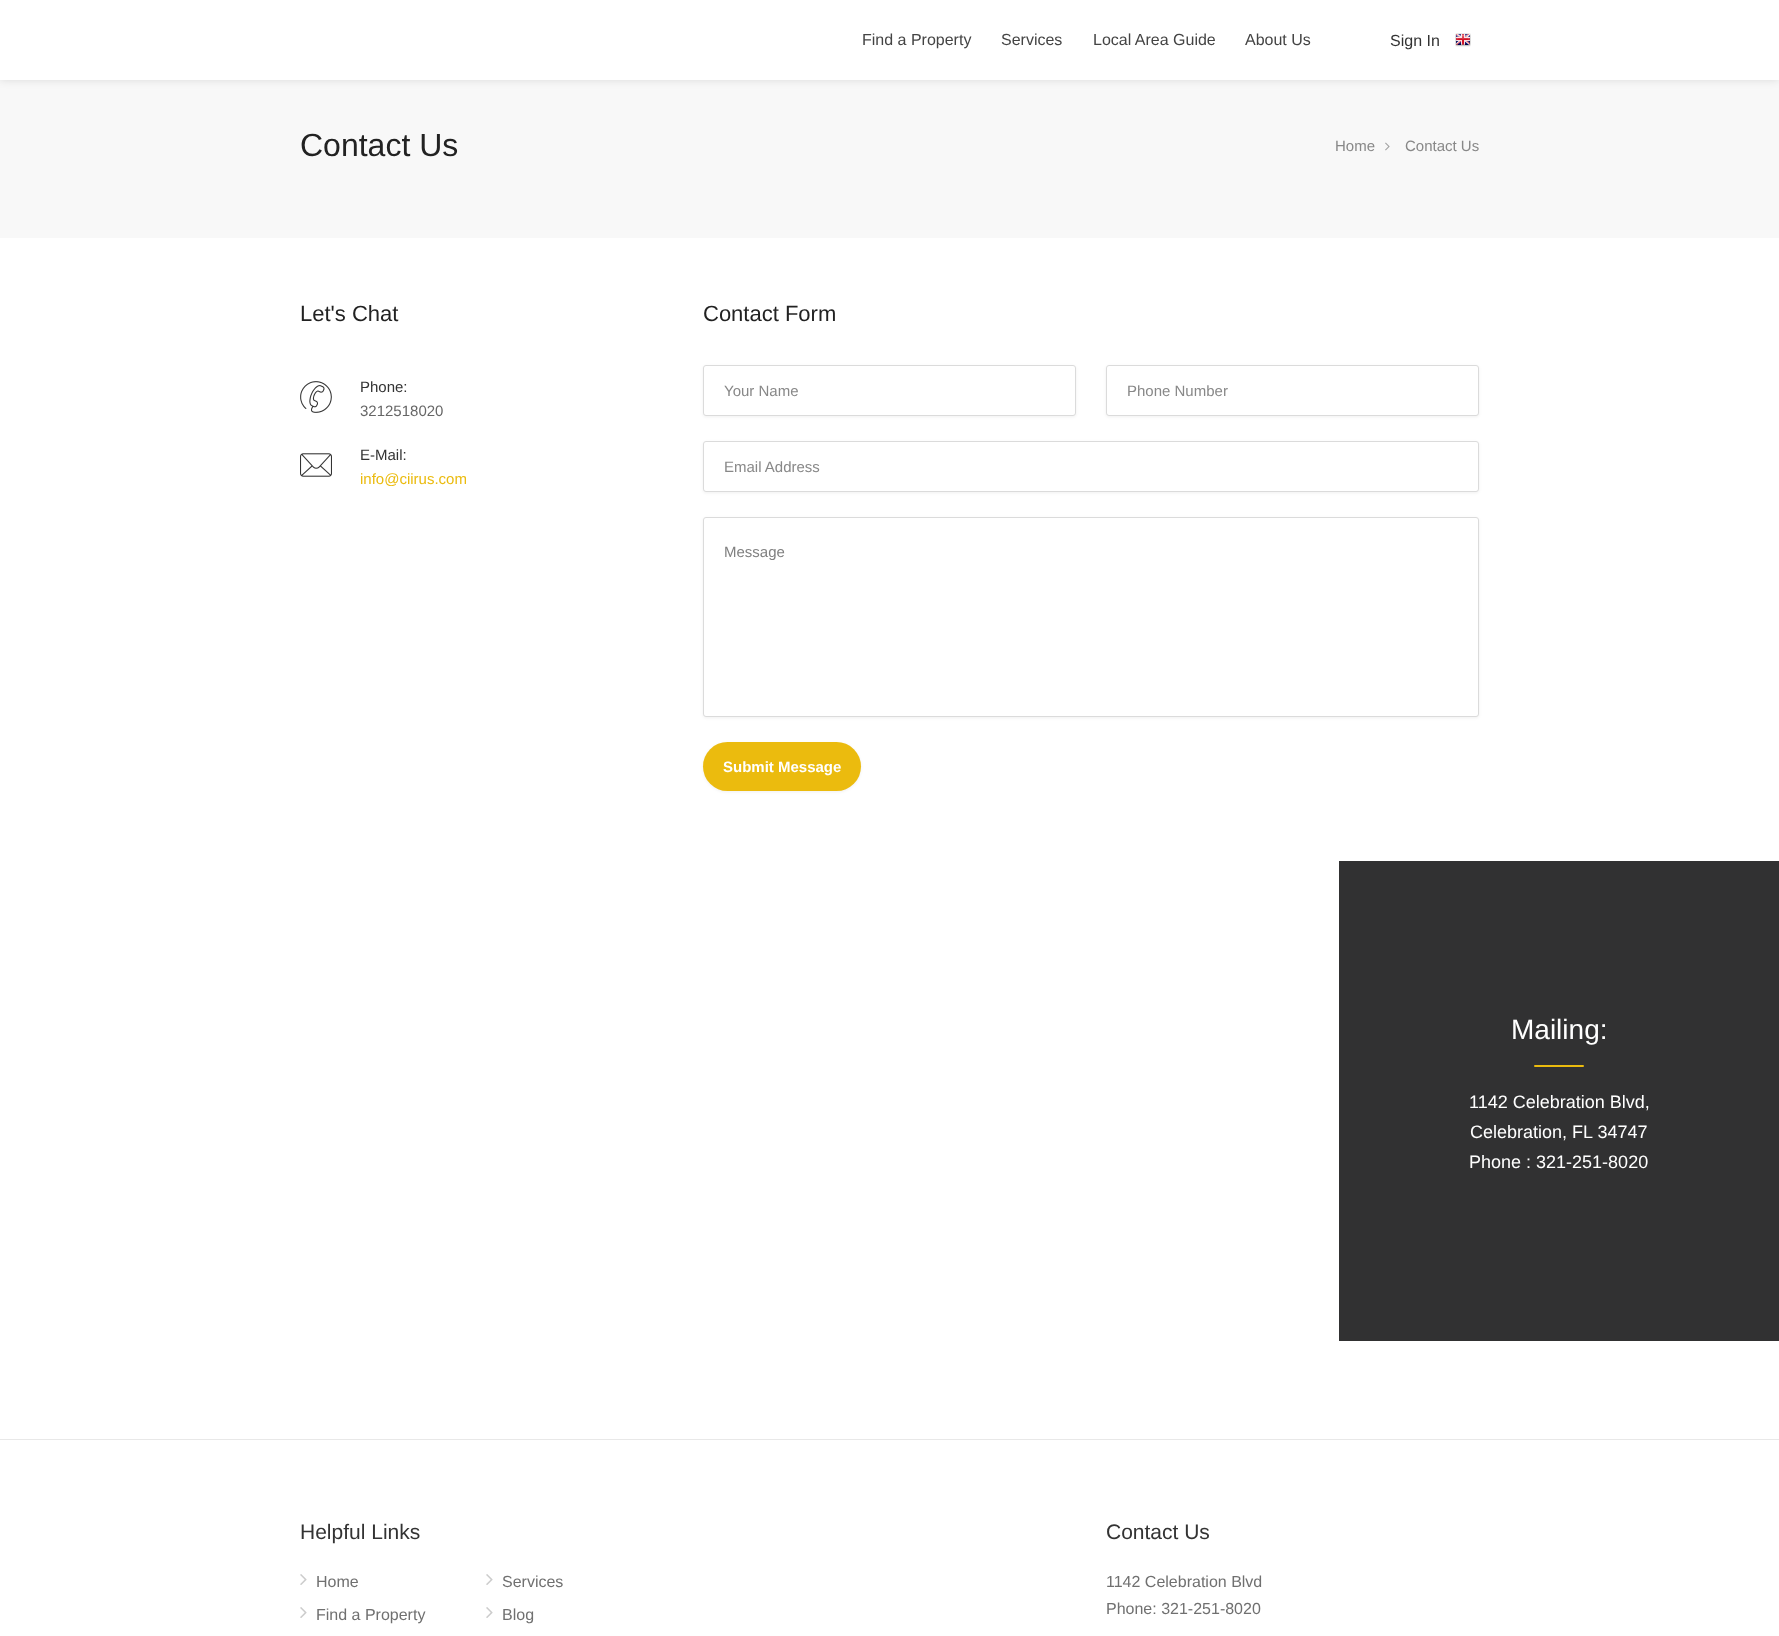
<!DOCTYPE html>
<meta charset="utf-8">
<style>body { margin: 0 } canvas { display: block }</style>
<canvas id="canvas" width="1779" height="1636"></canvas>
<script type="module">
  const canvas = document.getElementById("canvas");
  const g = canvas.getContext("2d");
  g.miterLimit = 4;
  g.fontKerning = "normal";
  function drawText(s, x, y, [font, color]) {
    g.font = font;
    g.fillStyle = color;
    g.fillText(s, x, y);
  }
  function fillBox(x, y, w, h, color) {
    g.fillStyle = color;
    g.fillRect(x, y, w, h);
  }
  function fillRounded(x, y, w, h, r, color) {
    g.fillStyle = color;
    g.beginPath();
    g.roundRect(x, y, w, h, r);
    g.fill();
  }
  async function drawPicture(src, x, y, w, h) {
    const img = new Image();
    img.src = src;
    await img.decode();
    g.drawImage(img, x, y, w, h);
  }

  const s1 = ["16px Liberation Sans", "#444444"];
  const s2 = ["16px Liberation Sans", "#333333"];
  const s3 = ["32px Liberation Sans", "#222222"];
  const s4 = ["15px Liberation Sans", "#888888"];
  const s5 = ["22px Liberation Sans", "#222222"];
  const s6 = ["15px Liberation Sans", "#333333"];
  const s7 = ["15px Liberation Sans", "#666666"];
  const s8 = ["15px Liberation Sans", "#EBBB0E"];
  const s9 = ["15px Liberation Sans", "#808080"];
  const s10 = ["bold 15px Liberation Sans", "#FFFFFF"];
  const s11 = ["28px Liberation Sans", "#FFFFFF"];
  const s12 = ["18px Liberation Sans", "#FFFFFF"];
  const s13 = ["21px Liberation Sans", "#333333"];
  const s14 = ["16px Liberation Sans", "#707070"];

  fillBox(0, 0, 1779, 1636, "#FFFFFF");
  fillBox(0, 80, 1779, 158, "#F8F8F8");
  g.fillStyle = "rgba(0, 0, 0, 0.12)";
  g.filter = "blur(4px)";
  g.beginPath();
  g.rect(0, 0, 1779, 80);
  g.fill();
  g.filter = "none";
  fillBox(0, 0, 1779, 80, "#FFFFFF");
  drawText("Find a Property", 862, 45, s1);
  drawText("Services", 1001, 45, s1);
  drawText("Local Area Guide", 1093, 45, s1);
  drawText("About Us", 1245, 45, s1);
  drawText("Sign In", 1390, 46, s2);
  await drawPicture("pic1.png", 1455, 33, 16, 14);
  drawText("Contact Us", 300, 156, s3);
  drawText("Home", 1335, 151, s4);
  await drawPicture("pic2.png", 1385, 142, 5, 9);
  drawText("Contact Us", 1405, 151, s4);
  drawText("Let's Chat", 300, 321, s5);
  await drawPicture("pic3.png", 300, 381, 32, 32);
  drawText("Phone:", 360, 392, s6);
  drawText("3212518020", 360, 416, s7);
  await drawPicture("pic4.png", 300, 453, 32, 24);
  drawText("E-Mail:", 360, 460, s6);
  drawText("info@ciirus.com", 360, 484, s8);
  drawText("Contact Form", 703, 321, s5);
  g.fillStyle = "rgba(0, 0, 0, 0.06)";
  g.filter = "blur(1.5px)";
  g.beginPath();
  g.roundRect(703, 366, 373, 51, 3);
  g.fill();
  g.filter = "none";
  g.fillStyle = "#FFFFFF";
  g.beginPath();
  g.roundRect(703.5, 365.5, 372, 50, 2.5);
  g.fill();
  g.strokeStyle = "#DBDBDB";
  g.stroke();
  drawText("Your Name", 724, 396, s4);
  g.fillStyle = "rgba(0, 0, 0, 0.06)";
  g.filter = "blur(1.5px)";
  g.beginPath();
  g.roundRect(1106, 366, 373, 51, 3);
  g.fill();
  g.filter = "none";
  g.fillStyle = "#FFFFFF";
  g.beginPath();
  g.roundRect(1106.5, 365.5, 372, 50, 2.5);
  g.fill();
  g.stroke();
  drawText("Phone Number", 1127, 396, s4);
  g.fillStyle = "rgba(0, 0, 0, 0.06)";
  g.filter = "blur(1.5px)";
  g.beginPath();
  g.roundRect(703, 442, 776, 51, 3);
  g.fill();
  g.filter = "none";
  g.fillStyle = "#FFFFFF";
  g.beginPath();
  g.roundRect(703.5, 441.5, 775, 50, 2.5);
  g.fill();
  g.stroke();
  drawText("Email Address", 724, 472, s4);
  g.fillStyle = "rgba(0, 0, 0, 0.06)";
  g.filter = "blur(1.5px)";
  g.beginPath();
  g.roundRect(703, 518, 776, 200, 3);
  g.fill();
  g.filter = "none";
  g.fillStyle = "#FFFFFF";
  g.beginPath();
  g.roundRect(703.5, 517.5, 775, 199, 2.5);
  g.fill();
  g.stroke();
  drawText("Message", 724, 557, s9);
  g.fillStyle = "rgba(0, 0, 0, 0.06)";
  g.filter = "blur(1.5px)";
  g.beginPath();
  g.roundRect(703, 743, 158, 49, 24.5);
  g.fill();
  g.filter = "none";
  fillRounded(703, 742, 158, 49, 24.5, "#EBBB0E");
  drawText("Submit Message", 723, 772, s10);
  fillBox(1339, 861, 440, 480, "#313132");
  drawText("Mailing:", 1511, 1039, s11);
  fillRounded(1534, 1065, 50, 2, 1, "#EBBB0E");
  drawText("1142 Celebration Blvd,", 1469, 1108, s12);
  drawText("Celebration, FL 34747", 1470, 1138, s12);
  drawText("Phone : 321-251-8020", 1469, 1168, s12);
  fillBox(0, 1439, 1779, 1, "#E8E8E8");
  drawText("Helpful Links", 300, 1539, s13);
  await drawPicture("pic5.png", 300, 1574, 7, 11);
  drawText("Home", 316, 1587, s14);
  await drawPicture("pic5.png", 300, 1607, 7, 11);
  drawText("Find a Property", 316, 1620, s14);
  await drawPicture("pic5.png", 486, 1574, 7, 11);
  drawText("Services", 502, 1587, s14);
  await drawPicture("pic5.png", 486, 1607, 7, 11);
  drawText("Blog", 502, 1620, s14);
  drawText("Contact Us", 1106, 1539, s13);
  drawText("1142 Celebration Blvd", 1106, 1587, s14);
  drawText("Phone: 321-251-8020", 1106, 1614, s14);
</script>
